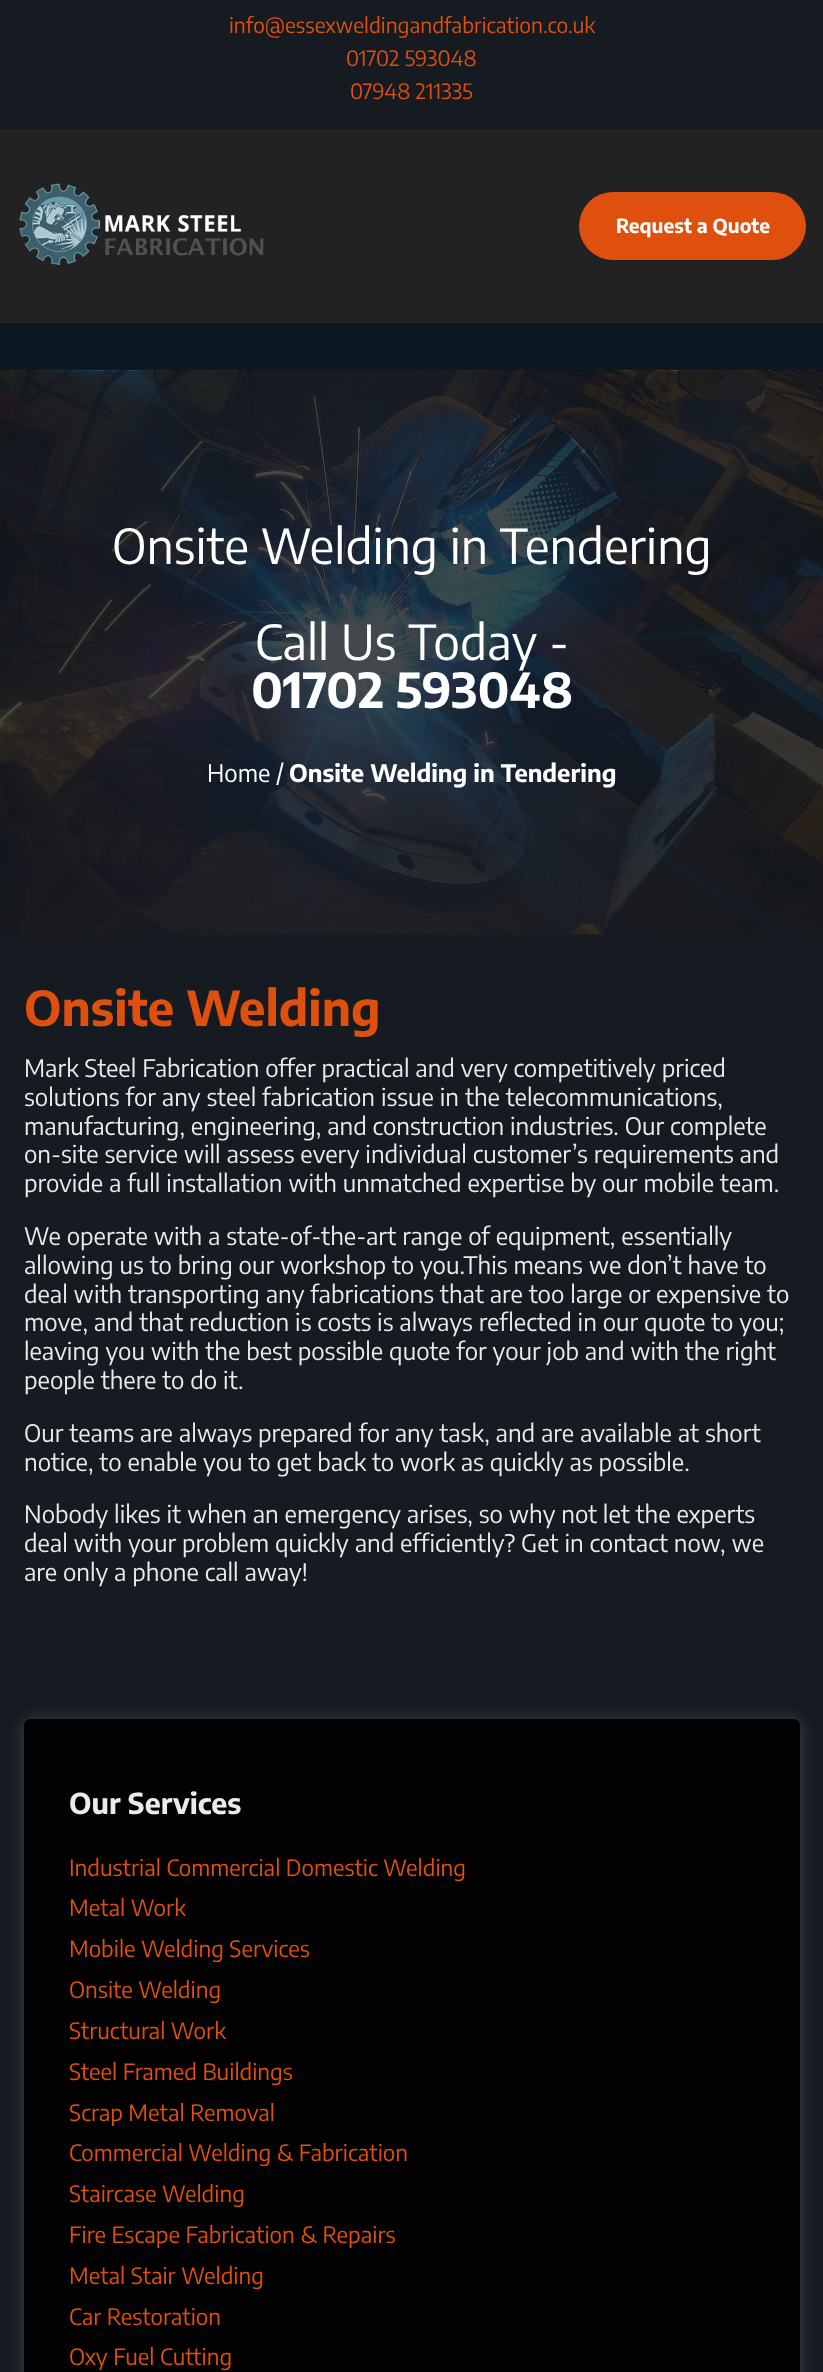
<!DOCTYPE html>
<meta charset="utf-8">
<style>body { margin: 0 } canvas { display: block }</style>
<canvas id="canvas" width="823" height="2372"></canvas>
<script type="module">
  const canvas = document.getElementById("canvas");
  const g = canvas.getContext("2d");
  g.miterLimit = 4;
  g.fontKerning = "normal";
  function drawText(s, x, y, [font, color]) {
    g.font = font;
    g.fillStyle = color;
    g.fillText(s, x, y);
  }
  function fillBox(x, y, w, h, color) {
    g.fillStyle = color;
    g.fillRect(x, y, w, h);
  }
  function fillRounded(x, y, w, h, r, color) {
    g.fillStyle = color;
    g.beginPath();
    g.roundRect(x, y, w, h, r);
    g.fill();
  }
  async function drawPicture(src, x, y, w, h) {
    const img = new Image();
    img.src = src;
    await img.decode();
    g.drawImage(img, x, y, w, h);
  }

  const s1 = ["21px Encode Sans Condensed", "#DF500E"];
  const s2 = ["bold 19.5px Encode Sans Condensed", "#FFFFFF"];
  const s3 = ["48px Encode Sans Condensed", "#FFFFFF"];
  const s4 = ["bold 48px Encode Sans Condensed", "#FFFFFF"];
  const s5 = ["24px Encode Sans Condensed", "#FFFFFF"];
  const s6 = ["bold 24px Encode Sans Condensed", "#FFFFFF"];
  const s7 = ["bold 48px Encode Sans Condensed", "#DF500E"];
  const s8 = ["24px Encode Sans Condensed", "#ECEBEB"];
  const s9 = ["bold 28.75px Encode Sans Condensed", "#ECEBEB"];
  const s10 = ["22.4px Encode Sans Condensed", "#DF500E"];

  fillBox(0, 0, 823, 2372, "#151B20");
  drawText("info@essexweldingandfabrication.co.uk", 229, 33, s1);
  drawText("01702 593048", 346, 66, s1);
  drawText("07948 211335", 350, 99, s1);
  fillBox(0, 129, 823, 194, "#222222");
  await drawPicture("pic1.png", 18, 183, 246, 83);
  fillRounded(579, 192, 227, 68, 34, "#DF500E");
  drawText("Request a Quote", 616, 233, s2);
  fillBox(0, 323, 823, 48, "#0B1922");
  await drawPicture("pic2.png", 0, 370, 823, 565);
  drawText("Onsite Welding in Tendering", 112, 564, s3);
  drawText("Call Us Today -", 255, 660, s3);
  drawText("01702 593048", 251, 708, s4);
  drawText("Home /", 207, 782, s5);
  drawText("Onsite Welding in Tendering", 289, 782, s6);
  drawText("Onsite Welding", 24, 1026, s7);
  drawText("Mark Steel Fabrication offer practical and very competitively priced", 24, 1077, s8);
  drawText("solutions for any steel fabrication issue in the telecommunications,", 24, 1106, s8);
  drawText("manufacturing, engineering, and construction industries. Our complete", 24, 1135, s8);
  drawText("on-site service will assess every individual customer’s requirements and", 24, 1163, s8);
  drawText("provide a full installation with unmatched expertise by our mobile team.", 24, 1192, s8);
  drawText("We operate with a state-of-the-art range of equipment, essentially", 24, 1245, s8);
  drawText("allowing us to bring our workshop to you.This means we don’t have to", 24, 1274, s8);
  drawText("deal with transporting any fabrications that are too large or expensive to", 24, 1303, s8);
  drawText("move, and that reduction is costs is always reflected in our quote to you;", 24, 1331, s8);
  drawText("leaving you with the best possible quote for your job and with the right", 24, 1360, s8);
  drawText("people there to do it.", 24, 1389, s8);
  drawText("Our teams are always prepared for any task, and are available at short", 24, 1442, s8);
  drawText("notice, to enable you to get back to work as quickly as possible.", 24, 1471, s8);
  drawText("Nobody likes it when an emergency arises, so why not let the experts", 24, 1523, s8);
  drawText("deal with your problem quickly and efficiently? Get in contact now, we", 24, 1552, s8);
  drawText("are only a phone call away!", 24, 1581, s8);
  g.fillStyle = "rgba(236, 235, 235, 0.2)";
  g.filter = "blur(7.5px)";
  g.beginPath();
  g.roundRect(24, 1719, 776, 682, 6);
  g.fill();
  g.filter = "none";
  fillRounded(24, 1719, 776, 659, 6, "#020202");
  drawText("Our Services", 69, 1814, s9);
  drawText("Industrial Commercial Domestic Welding", 69, 1876, s10);
  drawText("Metal Work", 69, 1916, s10);
  drawText("Mobile Welding Services", 69, 1957, s10);
  drawText("Onsite Welding", 69, 1998, s10);
  drawText("Structural Work", 69, 2039, s10);
  drawText("Steel Framed Buildings", 69, 2080, s10);
  drawText("Scrap Metal Removal", 69, 2121, s10);
  drawText("Commercial Welding & Fabrication", 69, 2161, s10);
  drawText("Staircase Welding", 69, 2202, s10);
  drawText("Fire Escape Fabrication & Repairs", 69, 2243, s10);
  drawText("Metal Stair Welding", 69, 2284, s10);
  drawText("Car Restoration", 69, 2325, s10);
  drawText("Oxy Fuel Cutting", 69, 2365, s10);
</script>
